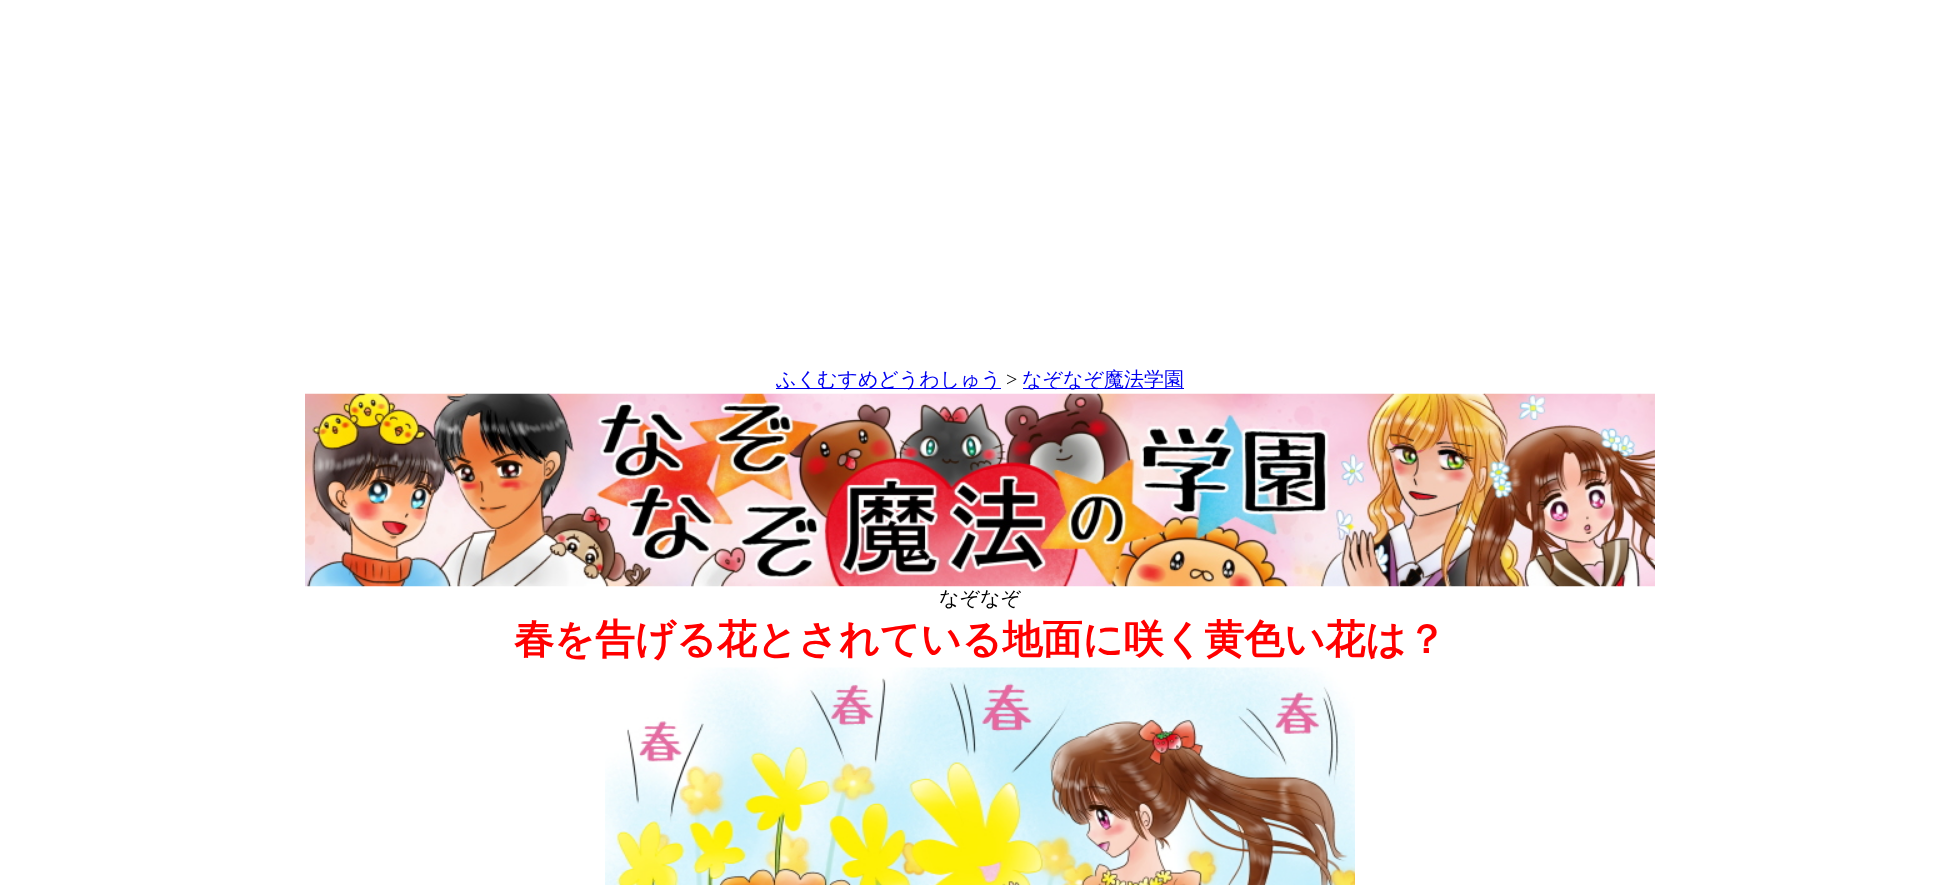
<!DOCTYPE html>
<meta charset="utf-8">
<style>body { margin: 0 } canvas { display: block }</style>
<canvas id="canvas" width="1960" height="885"></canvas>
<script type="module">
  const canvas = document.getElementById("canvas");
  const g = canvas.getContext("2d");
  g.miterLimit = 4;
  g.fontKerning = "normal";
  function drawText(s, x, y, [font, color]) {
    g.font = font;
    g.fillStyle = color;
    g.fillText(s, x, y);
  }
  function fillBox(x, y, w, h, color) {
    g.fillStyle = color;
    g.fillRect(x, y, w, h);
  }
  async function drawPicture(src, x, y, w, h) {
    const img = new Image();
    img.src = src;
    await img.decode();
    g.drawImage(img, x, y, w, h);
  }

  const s1 = ["500 20px WenQuanYi Zen Hei", "#0000EE"];
  const s2 = ["20px Liberation Serif", "#000000"];
  const s3 = ["500 20px WenQuanYi Zen Hei", "#000000"];
  const s4 = ["bold 40px WenQuanYi Zen Hei", "#FF0000"];

  fillBox(0, 0, 1960, 885, "#FFFFFF");
  fillBox(776, 388, 225, 1, "#0000EE");
  drawText("ふくむすめどうわしゅう", 776, 386, s1);
  drawText(">", 1006, 386, s2);
  fillBox(1023, 388, 161, 1, "#0000EE");
  drawText("なぞなぞ魔法学園", 1022, 386, s1);
  await drawPicture("pic1.png", 305, 393, 1350, 194);
  drawText("なぞなぞ", 939, 605, s3);
  drawText("春を告げる花とされている地面に咲く黄色い花は？", 514, 653, s4);
  await drawPicture("pic2.png", 605, 667, 750, 218);
</script>
